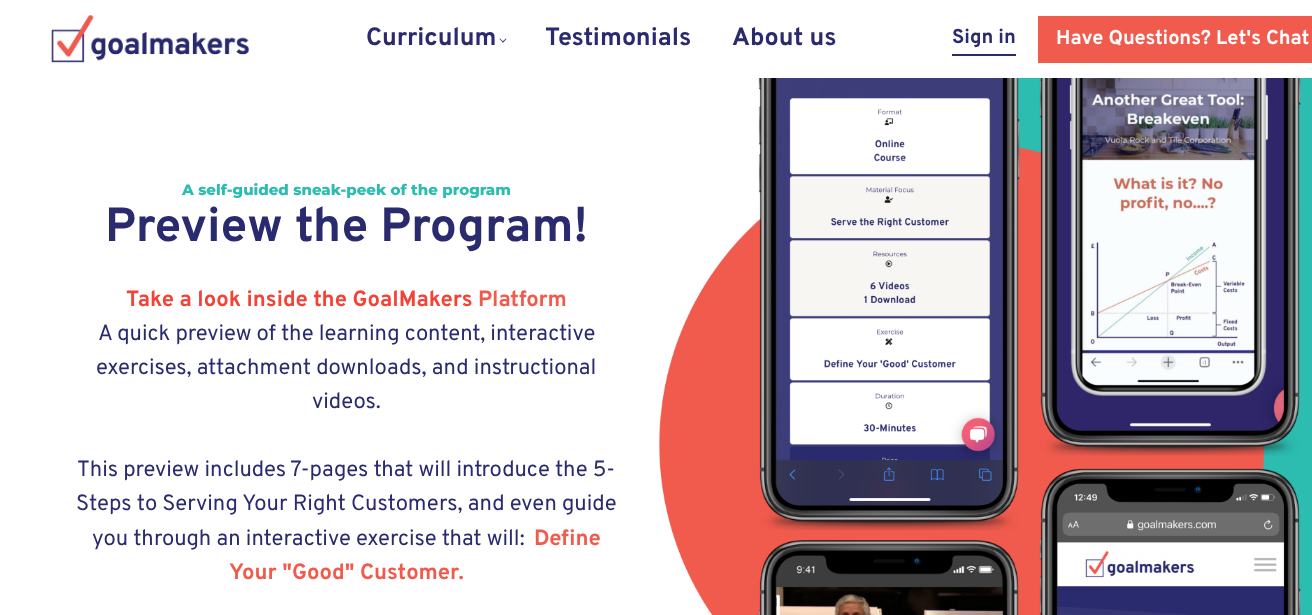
<!DOCTYPE html>
<meta charset="utf-8">
<style>body { margin: 0 } canvas { display: block }</style>
<canvas id="canvas" width="1312" height="615"></canvas>
<script type="module">
  const canvas = document.getElementById("canvas");
  const g = canvas.getContext("2d");
  g.miterLimit = 4;
  g.fontKerning = "normal";
  function drawText(s, x, y, [font, color]) {
    g.font = font;
    g.fillStyle = color;
    g.fillText(s, x, y);
  }
  function fillBox(x, y, w, h, color) {
    g.fillStyle = color;
    g.fillRect(x, y, w, h);
  }
  async function drawPicture(src, x, y, w, h) {
    const img = new Image();
    img.src = src;
    await img.decode();
    g.drawImage(img, x, y, w, h);
  }

  const s1 = ["bold 25px Overpass", "#2A2A6E"];
  const s2 = ["bold 20px Overpass", "#2A2A6E"];
  const s3 = ["bold 20px Overpass", "#FFFFFF"];
  const s4 = ["800 15px Montserrat", "#2CBCB0"];
  const s5 = ["bold 48px Overpass", "#2A2A6E"];
  const s6 = ["bold 22px Overpass", "#F44336"];
  const s7 = ["bold 22px Overpass", "#F15B4E"];
  const s8 = ["22px Overpass", "#2A2A6E"];

  fillBox(0, 0, 1312, 615, "#FFFFFF");
  await drawPicture("pic1.png", 51, 15, 199, 48);
  drawText("Curriculum", 366, 45, s1);
  g.beginPath();
  g.moveTo(506.5, 39);
  g.lineTo(503, 42.5);
  g.lineTo(502, 42);
  g.lineTo(506, 38.5);
  g.closePath();
  g.fill();
  g.beginPath();
  g.moveTo(503.5, 42);
  g.lineTo(503, 42.5);
  g.lineTo(499.5, 39);
  g.lineTo(500, 38.5);
  g.closePath();
  g.fill();
  drawText("Testimonials", 545, 45, s1);
  drawText("About us", 732, 45, s1);
  fillBox(952, 54, 64, 2, "#2A2A6E");
  drawText("Sign in", 952, 43, s2);
  fillBox(1038, 16, 274, 47, "#F15B4E");
  drawText("Have Questions? Let's Chat", 1056, 44, s3);
  await drawPicture("pic2.png", 659, 78, 653, 537);
  drawText("A self-guided sneak-peek of the program", 182, 195, s4);
  drawText("Preview the Program!", 105, 241, s5);
  drawText("Take a look inside the GoalMakers", 126, 306, s6);
  drawText("Platform", 478, 306, s7);
  drawText("A quick preview of the learning content, interactive", 98, 340, s8);
  drawText("exercises, attachment downloads, and instructional", 96, 374, s8);
  drawText("videos.", 312, 408, s8);
  drawText("This preview includes 7-pages that will introduce the 5-", 77, 476, s8);
  drawText("Steps to Serving Your Right Customers, and even guide", 76, 510, s8);
  drawText("you through an interactive exercise that will:", 92, 545, s8);
  drawText("Define", 534, 545, s7);
  drawText("Your \"Good\" Customer.", 229, 579, s7);
</script>
